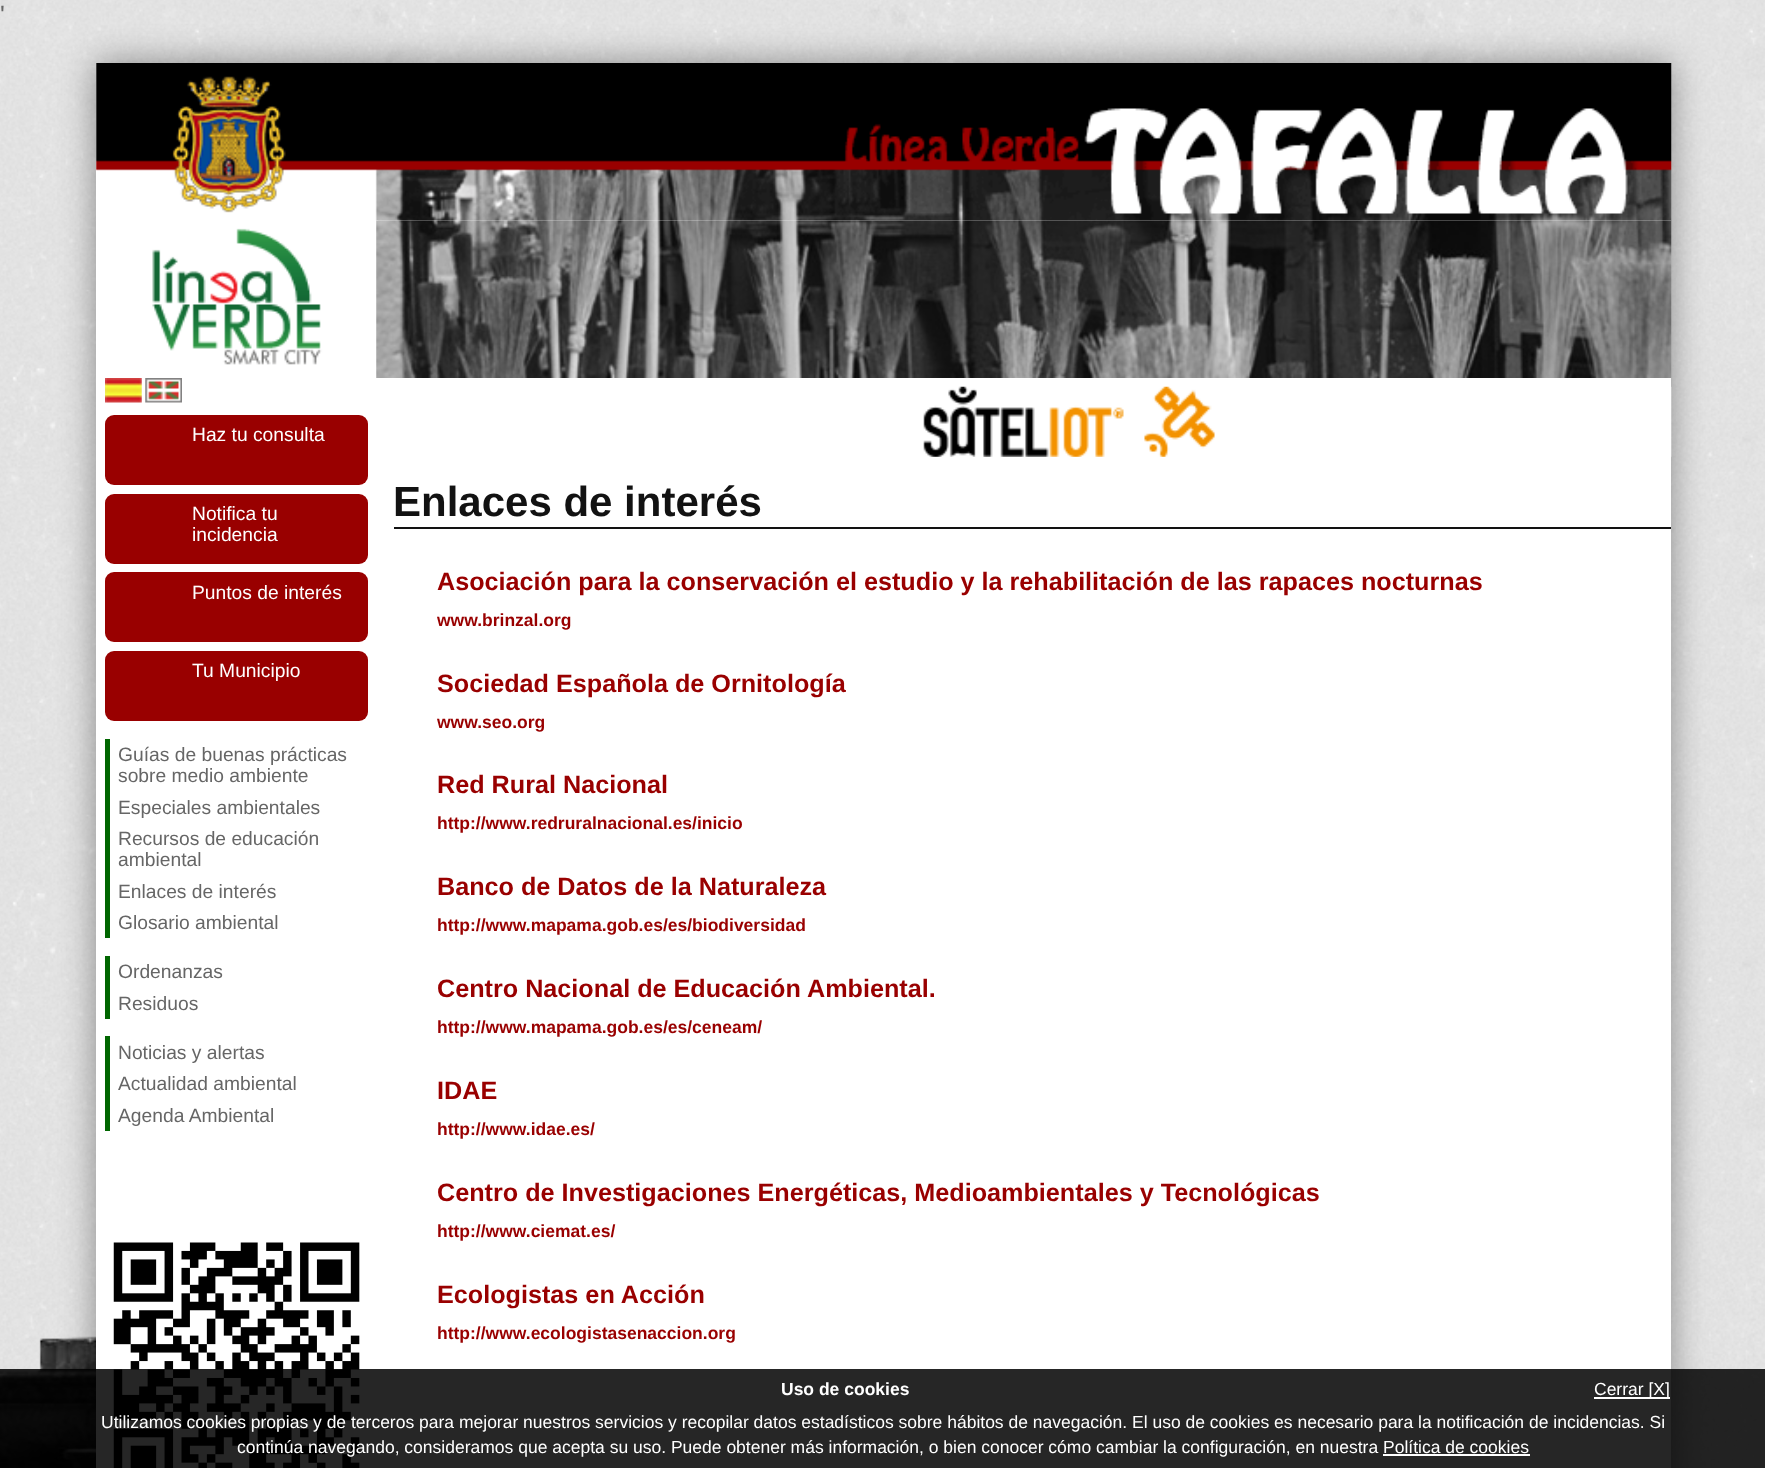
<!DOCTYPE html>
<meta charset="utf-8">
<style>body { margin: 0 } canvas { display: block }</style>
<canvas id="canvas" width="1765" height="1468"></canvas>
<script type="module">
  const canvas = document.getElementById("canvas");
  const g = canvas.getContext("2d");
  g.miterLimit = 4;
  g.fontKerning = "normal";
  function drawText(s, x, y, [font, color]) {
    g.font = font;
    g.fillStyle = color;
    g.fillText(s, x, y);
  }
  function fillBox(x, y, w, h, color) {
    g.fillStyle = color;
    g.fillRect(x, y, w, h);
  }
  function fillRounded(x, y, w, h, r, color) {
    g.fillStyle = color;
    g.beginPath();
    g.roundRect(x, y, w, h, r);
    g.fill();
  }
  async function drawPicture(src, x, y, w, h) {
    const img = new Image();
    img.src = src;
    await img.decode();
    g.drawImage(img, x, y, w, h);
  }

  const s1 = ["25.2px Liberation Sans", "#666666"];
  const s2 = ["19.25px Liberation Sans", "#FFFFFF"];
  const s3 = ["19.25px Liberation Sans", "#666666"];
  const s4 = ["bold 42px Liberation Sans", "#121212"];
  const s5 = ["bold 25.2px Liberation Sans", "#990000"];
  const s6 = ["bold 17.5px Liberation Sans", "#990000"];
  const s7 = ["bold 17.5px Liberation Sans", "#FFFFFF"];
  const s8 = ["17.5px Liberation Sans", "#FFFFFF"];

  fillBox(0, 0, 1765, 1468, "#FFFFFF");
  await drawPicture("pic1.png", 0, 0, 1765, 1468);
  drawText("'", 0, 23, s1);
  g.fillStyle = "rgba(0, 0, 0, 0.4)";
  g.filter = "blur(17.5px)";
  g.beginPath();
  g.rect(96, 63, 1575, 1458);
  g.fill();
  g.filter = "none";
  fillBox(96, 63, 1575, 1405, "#FFFFFF");
  await drawPicture("pic2.png", 96, 63, 1576, 158);
  await drawPicture("pic3.png", 152, 220, 226, 145);
  await drawPicture("pic4.png", 376, 220, 1296, 158);
  await drawPicture("pic5.png", 923, 386, 749, 71);
  await drawPicture("pic6.png", 105, 378, 37, 25);
  await drawPicture("pic7.png", 145, 378, 37, 25);
  fillRounded(105, 415, 263, 70, 9, "#990000");
  drawText("Haz tu consulta", 192, 441, s2);
  fillRounded(105, 494, 263, 70, 9, "#990000");
  drawText("Notifica tu", 192, 520, s2);
  drawText("incidencia", 192, 541, s2);
  fillRounded(105, 572, 263, 70, 9, "#990000");
  drawText("Puntos de interés", 192, 599, s2);
  fillRounded(105, 651, 263, 70, 9, "#990000");
  drawText("Tu Municipio", 192, 677, s2);
  fillBox(105, 739, 5, 199, "#006600");
  drawText("Guías de buenas prácticas", 118, 761, s3);
  drawText("sobre medio ambiente", 118, 782, s3);
  drawText("Especiales ambientales", 118, 814, s3);
  drawText("Recursos de educación", 118, 845, s3);
  drawText("ambiental", 118, 866, s3);
  drawText("Enlaces de interés", 118, 898, s3);
  drawText("Glosario ambiental", 118, 929, s3);
  fillBox(105, 956, 5, 63, "#006600");
  drawText("Ordenanzas", 118, 978, s3);
  drawText("Residuos", 118, 1010, s3);
  fillBox(105, 1036, 5, 95, "#006600");
  drawText("Noticias y alertas", 118, 1059, s3);
  drawText("Actualidad ambiental", 118, 1090, s3);
  drawText("Agenda Ambiental", 118, 1122, s3);
  await drawPicture("pic8.png", 113, 1242, 247, 226);
  fillBox(394, 527, 1277, 2, "#121212");
  drawText("Enlaces de interés", 393, 516, s4);
  drawText("Asociación para la conservación el estudio y la rehabilitación de las rapaces nocturnas", 437, 590, s5);
  drawText("www.brinzal.org", 437, 626, s6);
  drawText("Sociedad Española de Ornitología", 437, 692, s5);
  drawText("www.seo.org", 437, 728, s6);
  drawText("Red Rural Nacional", 437, 793, s5);
  drawText("http://www.redruralnacional.es/inicio", 437, 829, s6);
  drawText("Banco de Datos de la Naturaleza", 437, 895, s5);
  drawText("http://www.mapama.gob.es/es/biodiversidad", 437, 931, s6);
  drawText("Centro Nacional de Educación Ambiental.", 437, 997, s5);
  drawText("http://www.mapama.gob.es/es/ceneam/", 437, 1033, s6);
  drawText("IDAE", 437, 1099, s5);
  drawText("http://www.idae.es/", 437, 1135, s6);
  drawText("Centro de Investigaciones Energéticas, Medioambientales y Tecnológicas", 437, 1201, s5);
  drawText("http://www.ciemat.es/", 437, 1237, s6);
  drawText("Ecologistas en Acción", 437, 1303, s5);
  drawText("http://www.ecologistasenaccion.org", 437, 1339, s6);
  fillBox(0, 1369, 1765, 99, "rgba(0, 0, 0, 0.85)");
  drawText("Uso de cookies", 781, 1395, s7);
  fillBox(1594, 1397, 76, 2, "#FFFFFF");
  drawText("Cerrar [X]", 1594, 1395, s8);
  drawText("Utilizamos cookies propias y de terceros para mejorar nuestros servicios y recopilar datos estadísticos sobre hábitos de navegación. El uso de cookies es necesario para la notificación de incidencias. Si", 101, 1428, s8);
  drawText("continúa navegando, consideramos que acepta su uso. Puede obtener más información, o bien conocer cómo cambiar la configuración, en nuestra Política de cookies", 237, 1453, s8);
  fillBox(1383, 1454, 147, 2, "#FFFFFF");
</script>
